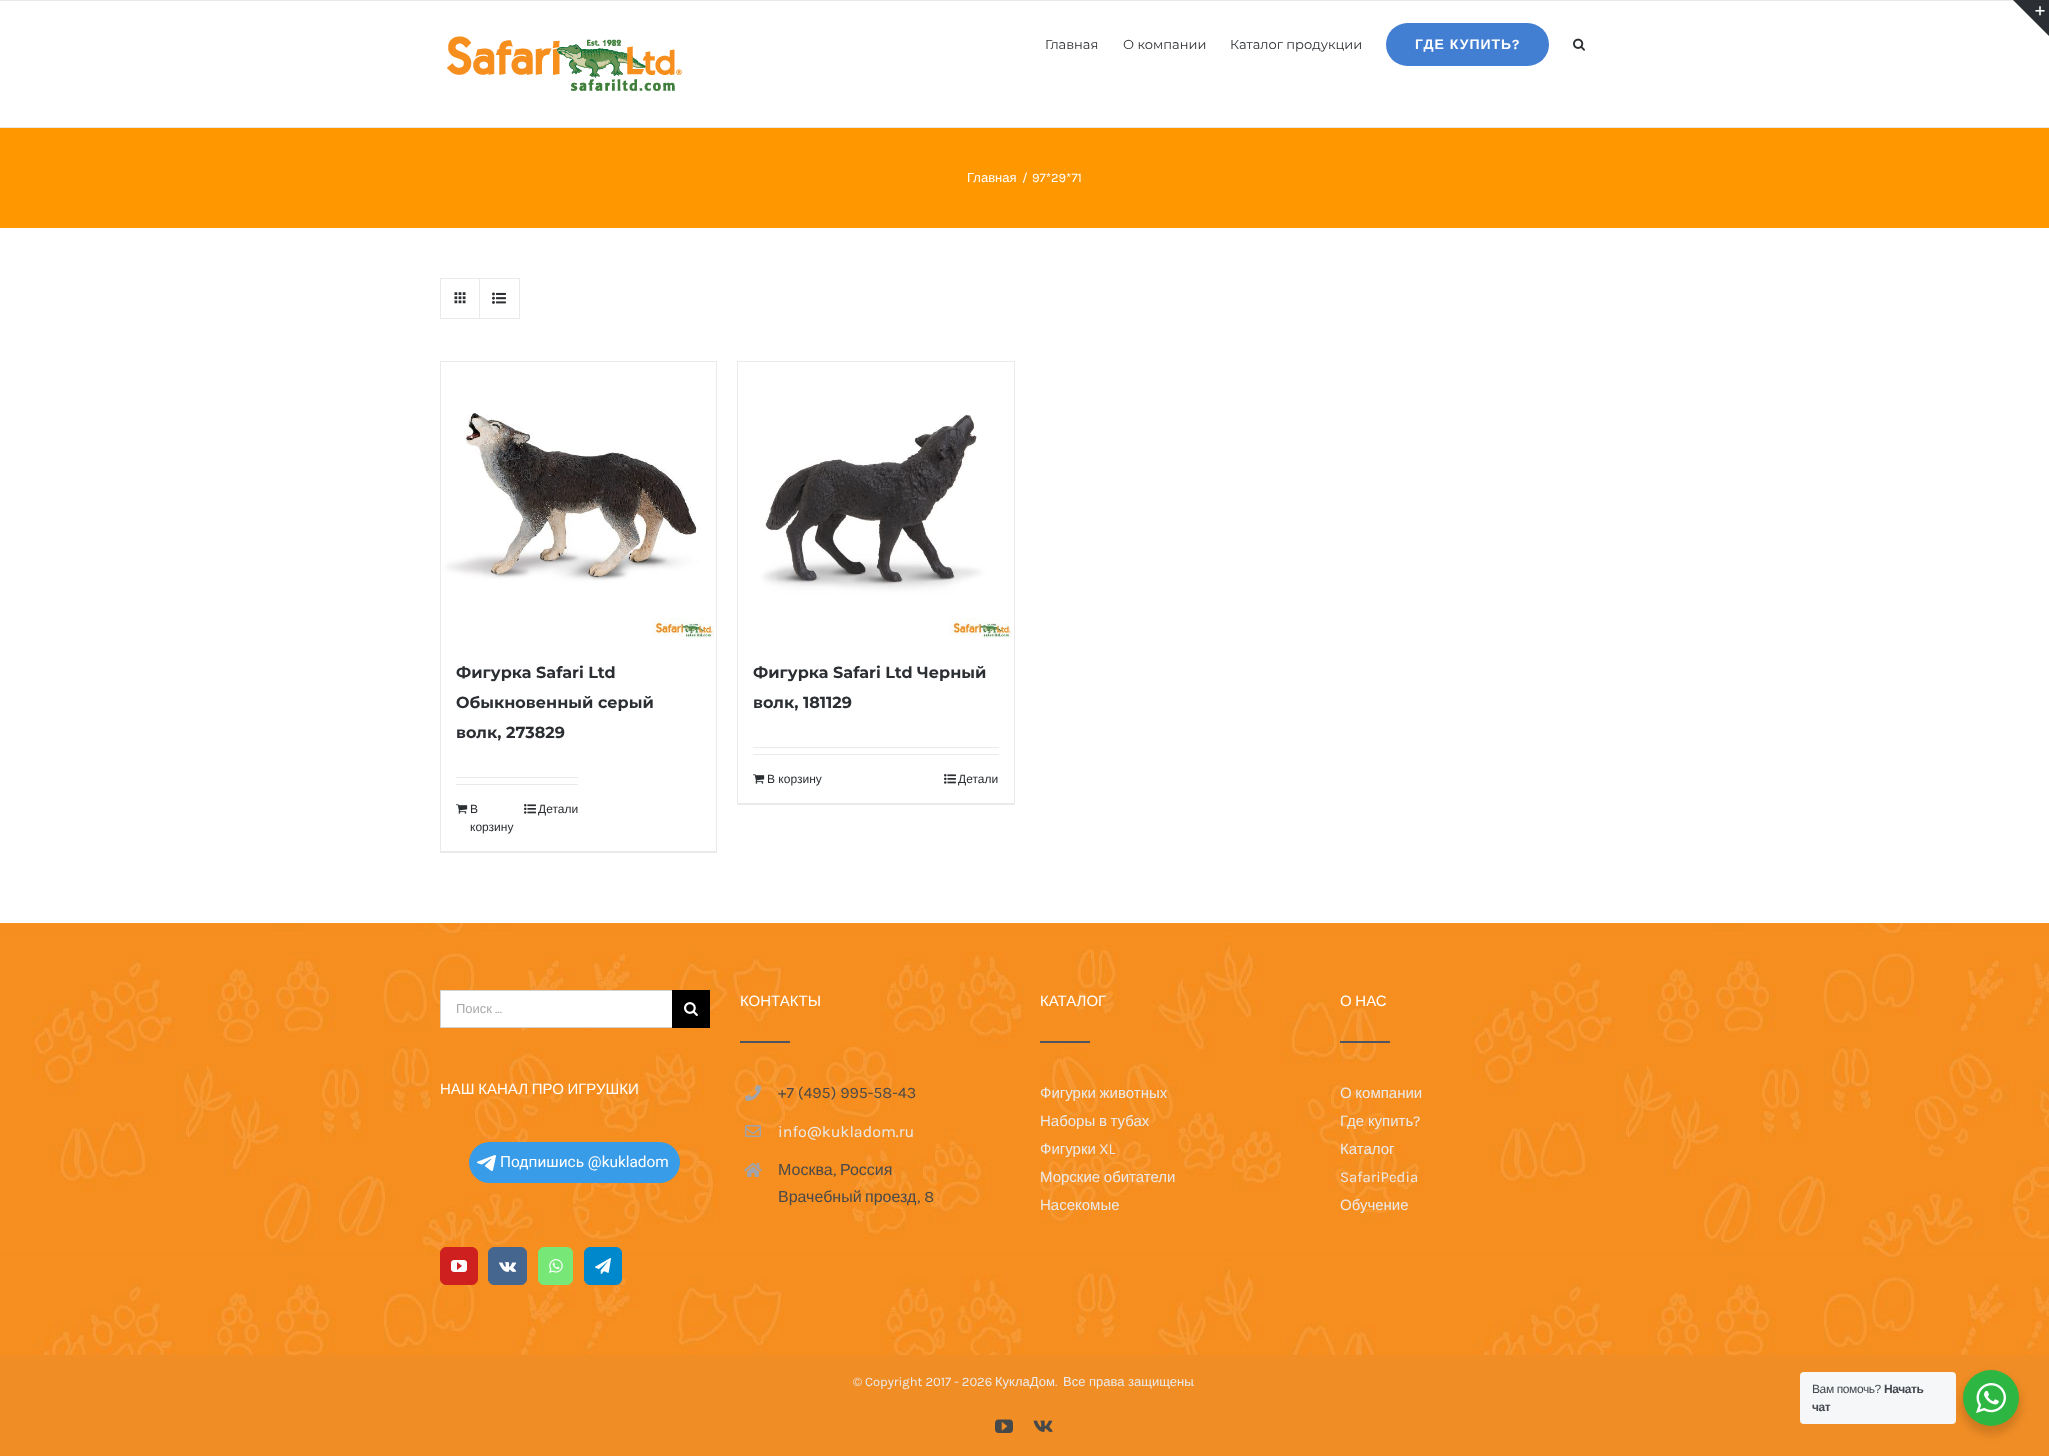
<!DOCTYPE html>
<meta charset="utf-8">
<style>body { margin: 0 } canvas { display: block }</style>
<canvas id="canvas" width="2049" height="1456"></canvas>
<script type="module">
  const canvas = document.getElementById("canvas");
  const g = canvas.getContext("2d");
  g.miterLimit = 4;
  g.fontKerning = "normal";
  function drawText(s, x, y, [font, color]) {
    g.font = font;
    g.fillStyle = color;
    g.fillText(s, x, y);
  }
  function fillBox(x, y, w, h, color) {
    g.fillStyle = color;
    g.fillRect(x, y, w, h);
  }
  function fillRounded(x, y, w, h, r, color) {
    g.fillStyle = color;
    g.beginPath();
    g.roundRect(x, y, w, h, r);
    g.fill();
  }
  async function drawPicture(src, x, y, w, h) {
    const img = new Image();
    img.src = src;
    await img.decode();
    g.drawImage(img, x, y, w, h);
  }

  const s1 = ["13px Montserrat", "#2B2E32"];
  const s2 = ["bold 14px Liberation Sans", "#FFFFFF"];
  const s3 = ["bold 14px Karla", "#FFFFFF"];
  const s4 = ["13px Liberation Sans", "#FFFFFF"];
  const s5 = ["13px Karla", "#FFFFFF"];
  const s6 = ["bold 16px Montserrat", "#2B2E32"];
  const s7 = ["12px Liberation Sans", "#2B2E32"];
  const s8 = ["13px Liberation Sans", "#AAA9A9"];
  const s9 = ["13px Karla", "#AAA9A9"];
  const s10 = ["15px Liberation Sans", "#FFFFFF"];
  const s11 = ["15.4px Roboto", "#FFFFFF"];
  const s12 = ["16px Karla", "#494949"];
  const s13 = ["16px Karla", "#EAEAEA"];
  const s14 = ["16px Liberation Sans", "#494949"];
  const s15 = ["15px Liberation Sans", "#EAEAEA"];
  const s16 = ["15px Karla", "#EAEAEA"];
  const s17 = ["13px Karla", "#EAEAEA"];
  const s18 = ["13px Liberation Sans", "#EAEAEA"];
  const s19 = ["12px Liberation Sans", "#43474E"];
  const s20 = ["bold 12px Liberation Sans", "#43474E"];

  fillBox(0, 0, 2049, 1456, "#FFFFFF");
  fillBox(0, 0, 2014, 1, "#EAEAEA");
  g.fillStyle = "#2B2E32";
  g.beginPath();
  g.moveTo(2013, 0);
  g.lineTo(2049, 0);
  g.lineTo(2049, 36);
  g.closePath();
  g.fill();
  await drawPicture("pic1.png", 2035, 6, 10, 10);
  fillBox(0, 127, 2049, 1, "#EAEAEA");
  await drawPicture("pic2.png", 447, 36, 235, 55);
  drawText("Главная", 1045, 49, s1);
  drawText("О компании", 1123, 49, s1);
  drawText("Каталог продукции", 1230, 49, s1);
  fillRounded(1386, 23, 163, 43, 21.5, "#427ED1");
  g.letterSpacing = "1px";
  drawText("ГДЕ КУПИТЬ", 1415, 49, s2);
  drawText("?", 1512, 49, s3);
  await drawPicture("pic3.png", 1573, 38, 12, 13);
  fillBox(0, 128, 2049, 100, "#FF9800");
  g.letterSpacing = "0px";
  drawText("Главная", 967, 182, s4);
  drawText("/", 1022, 182, s5);
  drawText("97*29*71", 1032, 182, s5);
  g.strokeStyle = "#EAEAEA";
  g.strokeRect(440.5, 278.5, 79, 40);
  fillBox(479, 279, 1, 39, "#EAEAEA");
  await drawPicture("pic4.png", 454, 292, 12, 12);
  await drawPicture("pic5.png", 492, 292, 14, 12);
  fillBox(440, 361, 277, 1, "#EAEAEA");
  fillBox(716, 361, 1, 492, "#EAEAEA");
  fillBox(440, 851, 277, 2, "#EAEAEA");
  fillBox(440, 361, 1, 492, "#EAEAEA");
  await drawPicture("pic6.png", 441, 362, 275, 276);
  drawText("Фигурка Safari Ltd", 456, 678, s6);
  drawText("Обыкновенный серый", 456, 708, s6);
  drawText("волк, 273829", 456, 738, s6);
  fillBox(456, 777, 122, 1, "#EAEAEA");
  fillBox(456, 784, 122, 1, "#EAEAEA");
  await drawPicture("pic7.png", 456, 804, 12, 10);
  drawText("В", 470, 813, s7);
  drawText("корзину", 470, 831, s7);
  await drawPicture("pic8.png", 524, 804, 12, 10);
  drawText("Детали", 538, 813, s7);
  fillBox(737, 361, 278, 1, "#EAEAEA");
  fillBox(1014, 361, 1, 444, "#EAEAEA");
  fillBox(737, 803, 278, 2, "#EAEAEA");
  fillBox(737, 361, 1, 444, "#EAEAEA");
  await drawPicture("pic9.png", 738, 362, 276, 276);
  drawText("Фигурка Safari Ltd Черный", 753, 678, s6);
  drawText("волк, 181129", 753, 708, s6);
  fillBox(753, 747, 246, 1, "#EAEAEA");
  fillBox(753, 754, 246, 1, "#EAEAEA");
  await drawPicture("pic7.png", 753, 774, 12, 10);
  drawText("В корзину", 767, 783, s7);
  await drawPicture("pic8.png", 944, 774, 12, 10);
  drawText("Детали", 958, 783, s7);
  await drawPicture("pic10.png", 0, 923, 2049, 432);
  fillBox(441, 991, 231, 36, "#FFFFFF");
  fillBox(440, 990, 232, 1, "#D2D2D2");
  fillBox(440, 1027, 232, 1, "#D2D2D2");
  fillBox(440, 990, 1, 38, "#D2D2D2");
  drawText("Поиск", 456, 1013, s8);
  drawText("...", 495, 1013, s9);
  fillBox(672, 990, 38, 38, "#000000");
  await drawPicture("pic11.png", 684, 1002, 14, 14);
  g.wordSpacing = "-0.5px";
  drawText("НАШ КАНАЛ ПРО ИГРУШКИ", 440, 1094, s10);
  fillRounded(469, 1142, 211, 41, 20.5, "#389CE9");
  await drawPicture("pic12.png", 477, 1155, 19, 16);
  g.wordSpacing = "0px";
  drawText("Подпишись @kukladom", 500, 1167, s11);
  g.fillStyle = "#CD201F";
  g.beginPath();
  g.roundRect(440.5, 1247.5, 37, 37, 5.5);
  g.fill();
  g.strokeStyle = "#CD201F";
  g.stroke();
  await drawPicture("pic13.png", 451, 1260, 16, 12);
  g.fillStyle = "#45668E";
  g.beginPath();
  g.roundRect(488.5, 1247.5, 38, 37, 5.5);
  g.fill();
  g.strokeStyle = "#45668E";
  g.stroke();
  await drawPicture("pic14.png", 499, 1262, 18, 10);
  g.fillStyle = "#77E878";
  g.beginPath();
  g.roundRect(538.5, 1247.5, 34, 37, 5.5);
  g.fill();
  g.strokeStyle = "#77E878";
  g.stroke();
  await drawPicture("pic15.png", 549, 1259, 14, 14);
  g.fillStyle = "#0088CC";
  g.beginPath();
  g.roundRect(584.5, 1247.5, 37, 37, 5.5);
  g.fill();
  g.strokeStyle = "#0088CC";
  g.stroke();
  await drawPicture("pic16.png", 595, 1258, 16, 16);
  drawText("КОНТАКТЫ", 740, 1006, s10);
  fillBox(740, 1041, 50, 2, "#4D5560");
  await drawPicture("pic17.png", 745, 1085, 16, 16);
  drawText("+7 (495) 995-58-43", 778, 1098, s12);
  await drawPicture("pic18.png", 745, 1125, 16, 12);
  drawText("info@kukladom.ru", 778, 1137, s13);
  await drawPicture("pic19.png", 744, 1163, 18, 14);
  drawText("Москва", 778, 1175, s14);
  drawText(",", 833, 1175, s12);
  drawText("Россия", 840, 1175, s14);
  drawText("Врачебный", 778, 1202, s14);
  drawText("проезд", 865, 1202, s14);
  drawText(", 8", 917, 1202, s12);
  drawText("КАТАЛОГ", 1040, 1006, s10);
  fillBox(1040, 1041, 50, 2, "#4D5560");
  g.wordSpacing = "-0.5px";
  drawText("Фигурки животных", 1040, 1098, s15);
  drawText("Наборы в тубах", 1040, 1126, s15);
  g.wordSpacing = "0px";
  drawText("Фигурки", 1040, 1154, s15);
  drawText("XL", 1099, 1154, s16);
  g.wordSpacing = "-0.5px";
  drawText("Морские обитатели", 1040, 1182, s15);
  g.wordSpacing = "0px";
  drawText("Насекомые", 1040, 1210, s15);
  g.wordSpacing = "-0.5px";
  drawText("О НАС", 1340, 1006, s10);
  fillBox(1340, 1041, 50, 2, "#4D5560");
  drawText("О компании", 1340, 1098, s15);
  drawText("Где купить", 1340, 1126, s15);
  g.wordSpacing = "0px";
  drawText("?", 1413, 1126, s16);
  drawText("Каталог", 1340, 1154, s15);
  drawText("SafariPedia", 1340, 1182, s16);
  drawText("Обучение", 1340, 1210, s15);
  fillBox(0, 1355, 2049, 101, "#F08D25");
  drawText("© Copyright 2017 - 2026", 853, 1386, s17);
  drawText("КуклаДом", 995, 1386, s18);
  drawText(".", 1055, 1386, s17);
  drawText("Все права защищены", 1063, 1386, s18);
  drawText(".", 1192, 1386, s17);
  await drawPicture("pic20.png", 995, 1419, 18, 14);
  await drawPicture("pic21.png", 1033, 1420, 20, 12);
  g.fillStyle = "rgba(0, 0, 0, 0.14)";
  g.filter = "blur(4px)";
  g.beginPath();
  g.roundRect(1961, 1374, 60, 60, 30);
  g.fill();
  g.filter = "none";
  fillRounded(1800, 1372, 156, 52, 4, "#F5F7F9");
  g.letterSpacing = "-0.4px";
  drawText("Вам помочь?", 1812, 1393, s19);
  drawText("Начать", 1884, 1393, s20);
  drawText("чат", 1812, 1411, s20);
  g.fillStyle = "#2DB742";
  g.beginPath();
  g.arc(1991, 1398, 28, 0, Math.PI * 2);
  g.fill();
  await drawPicture("pic22.png", 1976, 1383, 30, 30);
</script>
